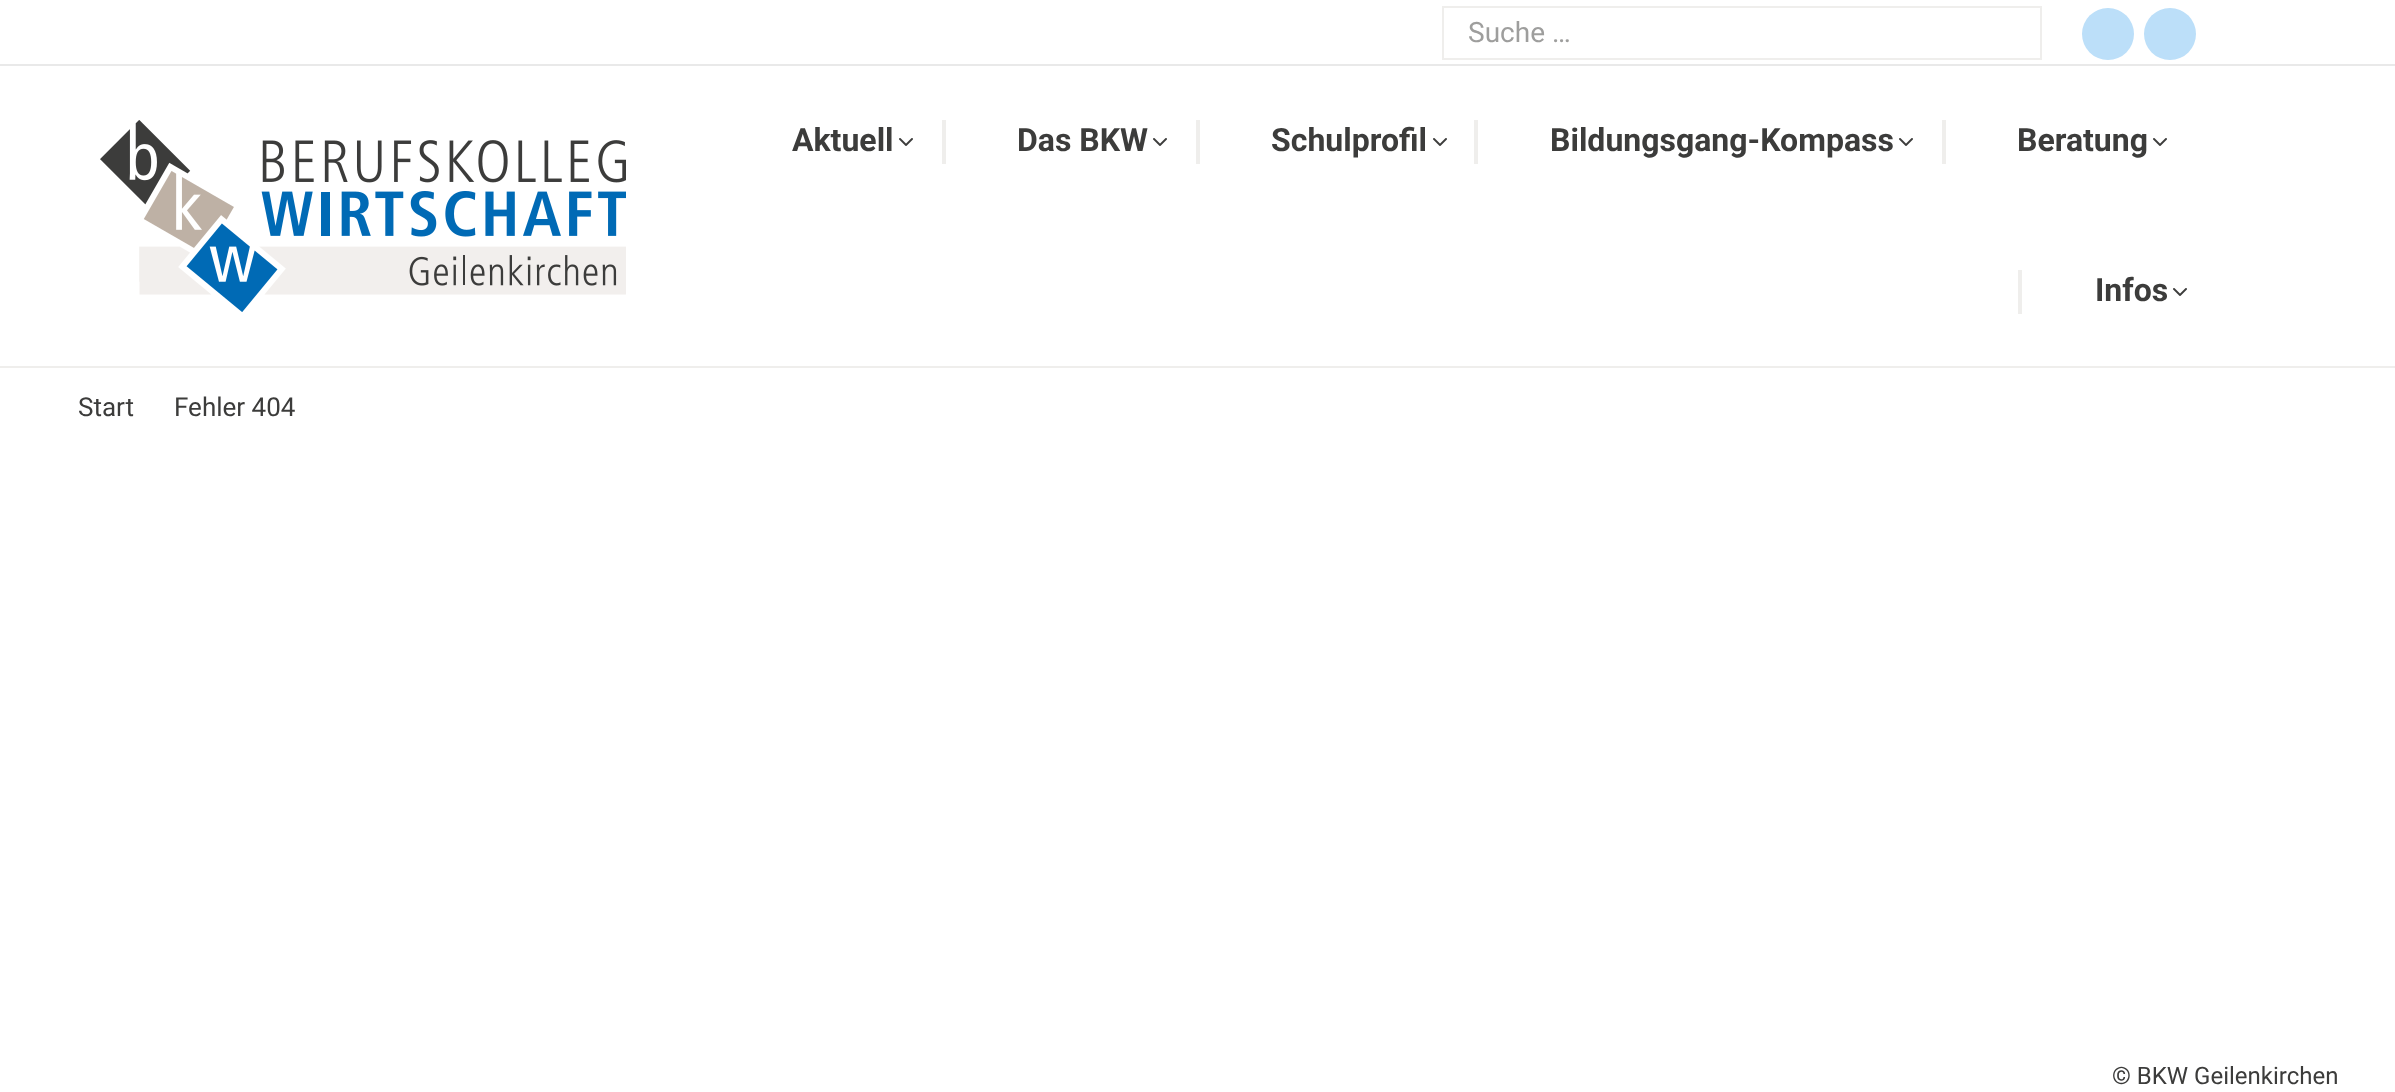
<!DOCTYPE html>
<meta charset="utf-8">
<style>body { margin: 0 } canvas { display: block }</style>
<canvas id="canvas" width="2395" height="1092"></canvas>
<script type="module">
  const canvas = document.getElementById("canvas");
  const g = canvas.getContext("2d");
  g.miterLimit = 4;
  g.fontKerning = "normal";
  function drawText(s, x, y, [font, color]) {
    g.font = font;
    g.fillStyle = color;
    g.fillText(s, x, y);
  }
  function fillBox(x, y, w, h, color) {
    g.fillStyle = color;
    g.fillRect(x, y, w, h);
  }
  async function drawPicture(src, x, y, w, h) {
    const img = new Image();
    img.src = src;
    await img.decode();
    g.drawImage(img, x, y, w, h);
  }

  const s1 = ["28px Roboto", "#9E9E9D"];
  const s2 = ["bold 32px Roboto", "#3C3C3B"];
  const s3 = ["26px Roboto", "#3C3C3B"];
  const s4 = ["24px Roboto", "#3C3C3B"];

  fillBox(0, 0, 2395, 1092, "#FFFFFF");
  fillBox(0, 366, 2395, 2, "#EFEEEC");
  g.strokeStyle = "#EFEEEC";
  g.lineWidth = 2;
  g.strokeRect(1443, 7, 598, 52);
  drawText("Suche …", 1468, 42, s1);
  g.fillStyle = "#BCDFF9";
  g.beginPath();
  g.arc(2108, 34, 26, 0, Math.PI * 2);
  g.fill();
  g.beginPath();
  g.arc(2170, 34, 26, 0, Math.PI * 2);
  g.fill();
  fillBox(0, 64, 2395, 2, "#E9E9E9");
  await drawPicture("pic1.png", 100, 120, 526, 192);
  drawText("Aktuell", 792, 151, s2);
  await drawPicture("pic2.png", 899, 138, 14, 8);
  fillBox(942, 120, 4, 44, "#EFEEEC");
  drawText("Das BKW", 1017, 151, s2);
  await drawPicture("pic2.png", 1153, 138, 14, 8);
  fillBox(1196, 120, 4, 44, "#EFEEEC");
  drawText("Schulprofil", 1271, 151, s2);
  await drawPicture("pic2.png", 1433, 138, 14, 8);
  fillBox(1474, 120, 4, 44, "#EFEEEC");
  drawText("Bildungsgang-Kompass", 1550, 151, s2);
  await drawPicture("pic2.png", 1899, 138, 14, 8);
  fillBox(1942, 120, 4, 44, "#EFEEEC");
  drawText("Beratung", 2017, 151, s2);
  await drawPicture("pic2.png", 2153, 138, 14, 8);
  fillBox(2018, 270, 4, 44, "#EFEEEC");
  drawText("Infos", 2095, 301, s2);
  await drawPicture("pic2.png", 2173, 288, 14, 8);
  drawText("Start", 78, 416, s3);
  drawText("Fehler 404", 174, 416, s3);
  drawText("© BKW Geilenkirchen", 2112, 1084, s4);
</script>
